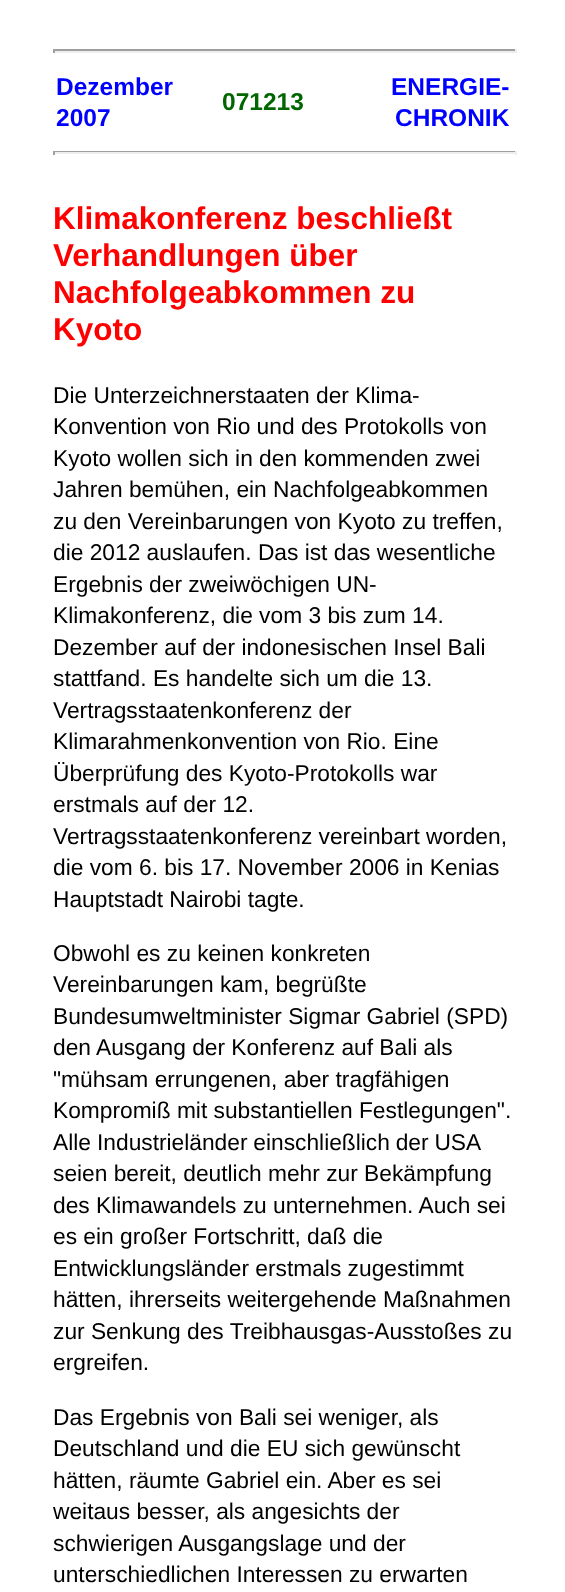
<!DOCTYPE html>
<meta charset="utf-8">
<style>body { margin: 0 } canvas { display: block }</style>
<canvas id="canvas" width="565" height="1592"></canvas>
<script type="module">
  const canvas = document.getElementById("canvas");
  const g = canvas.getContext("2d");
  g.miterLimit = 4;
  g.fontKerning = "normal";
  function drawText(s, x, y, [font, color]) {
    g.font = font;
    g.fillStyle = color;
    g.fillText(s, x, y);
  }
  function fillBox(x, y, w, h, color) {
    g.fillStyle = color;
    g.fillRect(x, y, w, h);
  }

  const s1 = ["bold 24.5px Liberation Sans", "#0000FF"];
  const s2 = ["bold 24.5px Liberation Sans", "#006600"];
  const s3 = ["bold 31.5px Liberation Sans", "#FF0000"];
  const s4 = ["22.75px Liberation Sans", "#000000"];

  fillBox(0, 0, 565, 1592, "#FFFFFF");
  fillBox(53, 49, 463, 2, "#9F9F9F");
  fillBox(515, 49, 2, 4, "#EEEEEE");
  fillBox(53, 51, 463, 2, "#EEEEEE");
  fillBox(53, 49, 2, 4, "#9F9F9F");
  drawText("Dezember", 56, 95, s1);
  drawText("2007", 56, 126, s1);
  drawText("071213", 222, 110, s2);
  drawText("ENERGIE-", 391, 95, s1);
  drawText("CHRONIK", 395, 126, s1);
  fillBox(53, 151, 463, 1, "#9F9F9F");
  fillBox(515, 151, 2, 4, "#EEEEEE");
  fillBox(53, 152, 463, 2, "#EEEEEE");
  fillBox(53, 151, 2, 4, "#9F9F9F");
  drawText("Klimakonferenz beschließt", 53, 229, s3);
  drawText("Verhandlungen über", 53, 266, s3);
  drawText("Nachfolgeabkommen zu", 53, 303, s3);
  drawText("Kyoto", 53, 340, s3);
  drawText("Die Unterzeichnerstaaten der Klima-", 53, 403, s4);
  drawText("Konvention von Rio und des Protokolls von", 53, 434, s4);
  drawText("Kyoto wollen sich in den kommenden zwei", 53, 466, s4);
  drawText("Jahren bemühen, ein Nachfolgeabkommen", 53, 497, s4);
  drawText("zu den Vereinbarungen von Kyoto zu treffen,", 53, 529, s4);
  drawText("die 2012 auslaufen. Das ist das wesentliche", 53, 560, s4);
  drawText("Ergebnis der zweiwöchigen UN-", 53, 592, s4);
  drawText("Klimakonferenz, die vom 3 bis zum 14.", 53, 623, s4);
  drawText("Dezember auf der indonesischen Insel Bali", 53, 655, s4);
  drawText("stattfand. Es handelte sich um die 13.", 53, 686, s4);
  drawText("Vertragsstaatenkonferenz der", 53, 718, s4);
  drawText("Klimarahmenkonvention von Rio. Eine", 53, 749, s4);
  drawText("Überprüfung des Kyoto-Protokolls war", 53, 781, s4);
  drawText("erstmals auf der 12.", 53, 812, s4);
  drawText("Vertragsstaatenkonferenz vereinbart worden,", 53, 844, s4);
  drawText("die vom 6. bis 17. November 2006 in Kenias", 53, 875, s4);
  drawText("Hauptstadt Nairobi tagte.", 53, 907, s4);
  drawText("Obwohl es zu keinen konkreten", 53, 961, s4);
  drawText("Vereinbarungen kam, begrüßte", 53, 992, s4);
  drawText("Bundesumweltminister Sigmar Gabriel (SPD)", 53, 1024, s4);
  drawText("den Ausgang der Konferenz auf Bali als", 53, 1055, s4);
  drawText("\"mühsam errungenen, aber tragfähigen", 53, 1087, s4);
  drawText("Kompromiß mit substantiellen Festlegungen\".", 53, 1118, s4);
  drawText("Alle", 53, 1150, s4);
  g.wordSpacing = "-0.5px";
  drawText("Industrieländer einschließlich der USA", 97, 1150, s4);
  g.wordSpacing = "0px";
  drawText("seien bereit, deutlich mehr zur Bekämpfung", 53, 1181, s4);
  drawText("des Klimawandels zu unternehmen. Auch sei", 53, 1213, s4);
  drawText("es ein großer Fortschritt, daß die", 53, 1244, s4);
  drawText("Entwicklungsländer erstmals zugestimmt", 53, 1276, s4);
  drawText("hätten, ihrerseits weitergehende Maßnahmen", 53, 1307, s4);
  drawText("zur Senkung des Treibhausgas-Ausstoßes zu", 53, 1339, s4);
  drawText("ergreifen.", 53, 1370, s4);
  drawText("Das Ergebnis von Bali sei weniger, als", 53, 1425, s4);
  drawText("Deutschland und die EU sich gewünscht", 53, 1456, s4);
  drawText("hätten, räumte Gabriel ein. Aber es sei", 53, 1488, s4);
  drawText("weitaus besser, als angesichts der", 53, 1519, s4);
  drawText("schwierigen Ausgangslage und der", 53, 1551, s4);
  drawText("unterschiedlichen Interessen zu erwarten", 53, 1582, s4);
</script>
